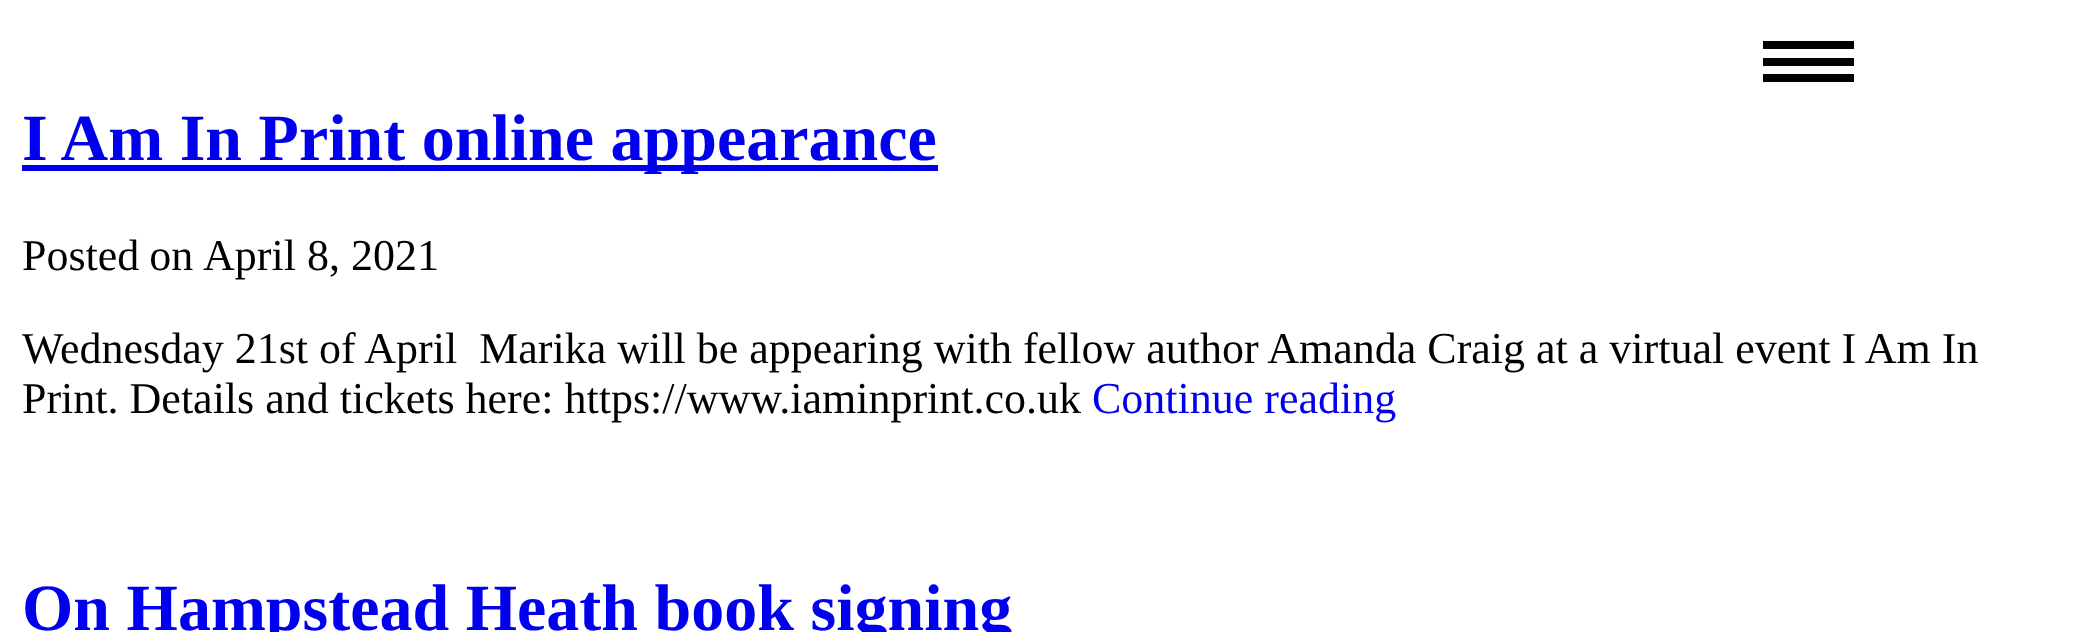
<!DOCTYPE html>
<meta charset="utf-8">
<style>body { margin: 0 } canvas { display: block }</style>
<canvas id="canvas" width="2073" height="632"></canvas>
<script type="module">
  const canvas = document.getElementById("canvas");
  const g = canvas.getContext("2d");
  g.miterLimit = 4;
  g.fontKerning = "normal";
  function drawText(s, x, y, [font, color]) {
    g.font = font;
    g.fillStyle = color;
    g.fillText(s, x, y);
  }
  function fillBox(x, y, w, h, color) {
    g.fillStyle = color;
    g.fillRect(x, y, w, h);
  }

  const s1 = ["bold 66px Liberation Serif", "#0000EE"];
  const s2 = ["44px Liberation Serif", "#000000"];
  const s3 = ["44px Liberation Serif", "#0000EE"];

  fillBox(0, 0, 2073, 632, "#FFFFFF");
  fillBox(1763, 41, 91, 8, "#000000");
  fillBox(1763, 58, 91, 8, "#000000");
  fillBox(1763, 74, 91, 8, "#000000");
  fillBox(22, 165, 916, 6, "#0000EE");
  drawText("I Am In Print online appearance", 22, 160, s1);
  g.wordSpacing = "-1px";
  drawText("Posted on", 22, 270, s2);
  g.wordSpacing = "0px";
  drawText("April 8, 2021", 203, 270, s2);
  drawText("Wednesday 21st of April  Marika will be appearing with fellow author Amanda Craig at a virtual event I Am In", 22, 363, s2);
  drawText("Print. Details and tickets here: https://www.iaminprint.co.uk", 22, 413, s2);
  drawText("Continue reading", 1092, 413, s3);
  drawText("On Hampstead Heath book signing", 22, 630, s1);
</script>
